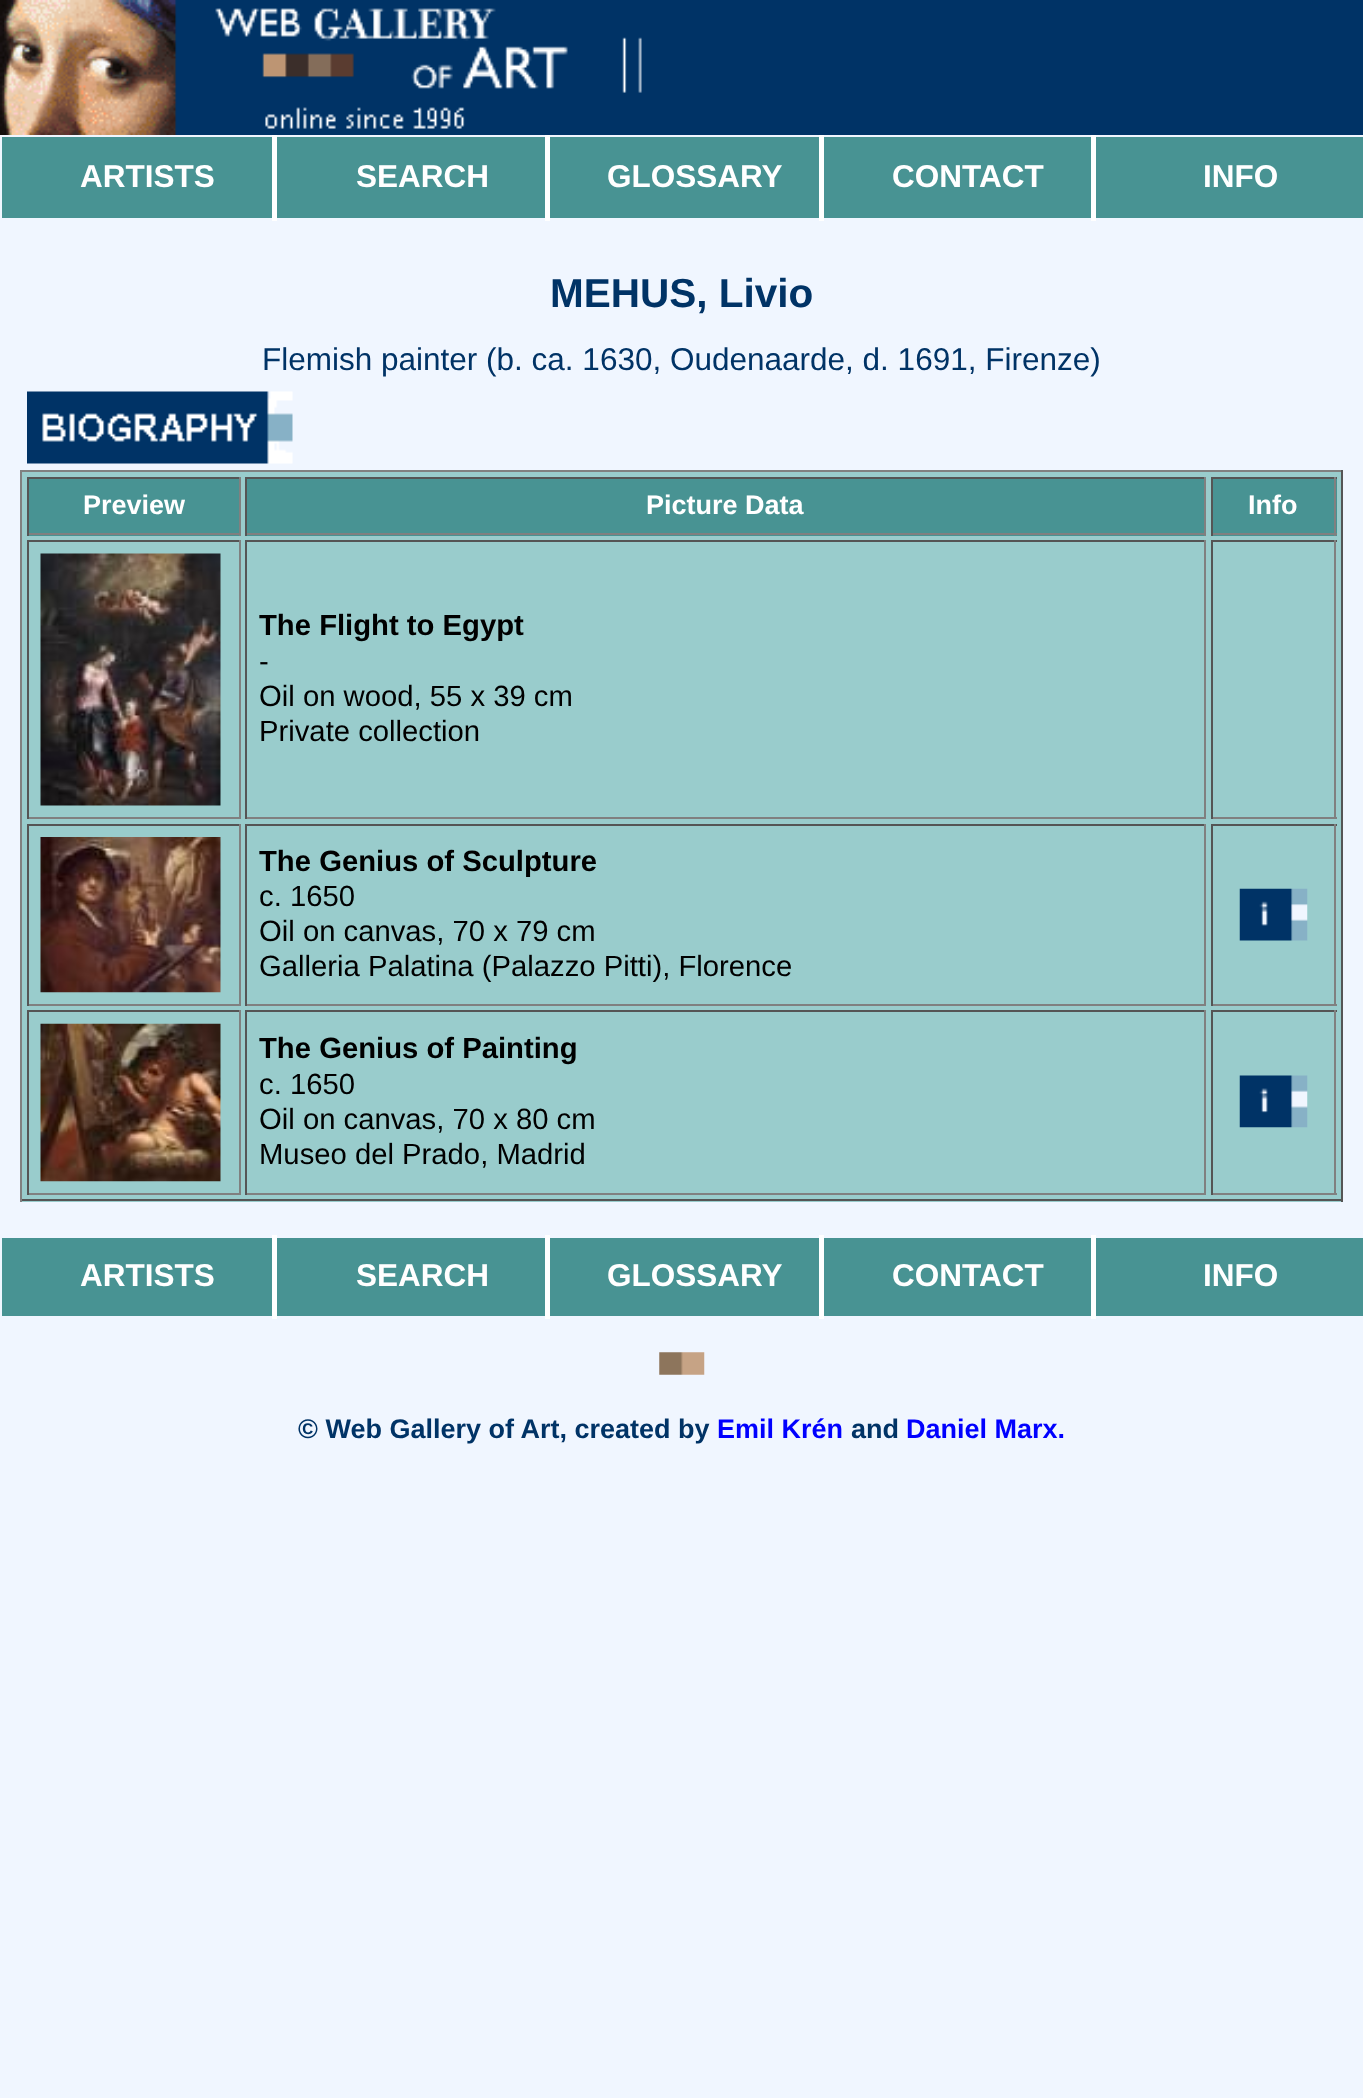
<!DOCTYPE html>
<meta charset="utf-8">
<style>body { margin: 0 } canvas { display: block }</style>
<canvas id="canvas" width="1363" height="2098"></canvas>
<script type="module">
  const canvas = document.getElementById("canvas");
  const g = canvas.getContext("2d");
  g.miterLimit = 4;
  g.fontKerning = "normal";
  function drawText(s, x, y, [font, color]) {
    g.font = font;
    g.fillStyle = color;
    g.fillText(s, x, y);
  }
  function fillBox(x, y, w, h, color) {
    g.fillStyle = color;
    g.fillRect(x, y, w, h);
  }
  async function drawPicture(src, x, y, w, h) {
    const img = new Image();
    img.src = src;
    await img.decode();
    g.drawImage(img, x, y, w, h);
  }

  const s1 = ["bold 31.5px Liberation Sans", "#FFFFFF"];
  const s2 = ["bold 40.5px Liberation Sans", "#003366"];
  const s3 = ["31.5px Liberation Sans", "#003366"];
  const s4 = ["bold 27px Liberation Sans", "#FFFFFF"];
  const s5 = ["bold 29.25px Liberation Sans", "#000000"];
  const s6 = ["29.25px Liberation Sans", "#000000"];
  const s7 = ["bold 27px Liberation Sans", "#003366"];
  const s8 = ["bold 27px Liberation Sans", "#0000FF"];

  fillBox(0, 0, 1363, 2098, "#F0F6FF");
  fillBox(642, 0, 721, 135, "#003366");
  await drawPicture("pic1.png", 0, 0, 642, 135);
  fillBox(2, 137, 1361, 81, "#489393");
  drawText("ARTISTS", 80, 187, s1);
  fillBox(272, 135, 5, 86, "#FFFFFF");
  drawText("SEARCH", 356, 187, s1);
  fillBox(545, 135, 5, 86, "#FFFFFF");
  drawText("GLOSSARY", 607, 187, s1);
  fillBox(819, 135, 5, 86, "#FFFFFF");
  drawText("CONTACT", 892, 187, s1);
  fillBox(1091, 135, 5, 86, "#FFFFFF");
  drawText("INFO", 1203, 187, s1);
  drawText("MEHUS, Livio", 550, 307, s2);
  drawText("Flemish painter (b. ca. 1630, Oudenaarde, d. 1691, Firenze)", 262, 370, s3);
  await drawPicture("pic2.png", 27, 391, 266, 73);
  fillBox(22, 472, 1319, 730, "#99CCCC");
  fillBox(20, 470, 1323, 2, "#808080");
  fillBox(1341, 470, 2, 732, "#555555");
  fillBox(20, 1199, 1323, 2, "#555555");
  fillBox(20, 470, 2, 732, "#808080");
  fillBox(29, 479, 210, 57, "#489393");
  fillBox(27, 477, 214, 2, "#555555");
  fillBox(239, 477, 2, 59, "#808080");
  fillBox(27, 533, 214, 2, "#808080");
  fillBox(27, 477, 2, 59, "#555555");
  drawText("Preview", 83, 514, s4);
  fillBox(247, 479, 957, 57, "#489393");
  fillBox(245, 477, 961, 2, "#555555");
  fillBox(1204, 477, 2, 59, "#808080");
  fillBox(245, 533, 961, 2, "#808080");
  fillBox(245, 477, 2, 59, "#555555");
  drawText("Picture Data", 646, 514, s4);
  fillBox(1213, 479, 124, 57, "#489393");
  fillBox(1211, 477, 126, 2, "#555555");
  fillBox(1334, 477, 2, 59, "#808080");
  fillBox(1211, 533, 126, 2, "#808080");
  fillBox(1211, 477, 2, 59, "#555555");
  drawText("Info", 1248, 514, s4);
  fillBox(27, 540, 214, 2, "#555555");
  fillBox(239, 540, 2, 279, "#808080");
  fillBox(27, 817, 214, 2, "#808080");
  fillBox(27, 540, 2, 279, "#555555");
  await drawPicture("pic3.png", 40, 553, 181, 253);
  fillBox(245, 540, 961, 2, "#555555");
  fillBox(1204, 540, 2, 279, "#808080");
  fillBox(245, 817, 961, 2, "#808080");
  fillBox(245, 540, 2, 279, "#555555");
  drawText("The Flight to Egypt", 259, 635, s5);
  drawText("-", 259, 671, s6);
  drawText("Oil on wood, 55 x 39 cm", 259, 706, s6);
  drawText("Private collection", 259, 741, s6);
  fillBox(1211, 540, 126, 2, "#555555");
  fillBox(1334, 540, 2, 279, "#808080");
  fillBox(1211, 817, 126, 2, "#808080");
  fillBox(1211, 540, 2, 279, "#555555");
  fillBox(27, 824, 214, 2, "#555555");
  fillBox(239, 824, 2, 182, "#808080");
  fillBox(27, 1004, 214, 2, "#808080");
  fillBox(27, 824, 2, 182, "#555555");
  await drawPicture("pic4.png", 40, 837, 181, 156);
  fillBox(245, 824, 961, 2, "#555555");
  fillBox(1204, 824, 2, 182, "#808080");
  fillBox(245, 1004, 961, 2, "#808080");
  fillBox(245, 824, 2, 182, "#555555");
  drawText("The Genius of Sculpture", 259, 871, s5);
  drawText("c. 1650", 259, 906, s6);
  drawText("Oil on canvas, 70 x 79 cm", 259, 941, s6);
  drawText("Galleria Palatina (Palazzo Pitti), Florence", 259, 976, s6);
  fillBox(1211, 824, 126, 2, "#555555");
  fillBox(1334, 824, 2, 182, "#808080");
  fillBox(1211, 1004, 126, 2, "#808080");
  fillBox(1211, 824, 2, 182, "#555555");
  await drawPicture("pic5.png", 1239, 888, 69, 53);
  fillBox(27, 1010, 214, 2, "#555555");
  fillBox(239, 1010, 2, 185, "#808080");
  fillBox(27, 1193, 214, 2, "#808080");
  fillBox(27, 1010, 2, 185, "#555555");
  await drawPicture("pic6.png", 40, 1023, 181, 159);
  fillBox(245, 1010, 961, 2, "#555555");
  fillBox(1204, 1010, 2, 185, "#808080");
  fillBox(245, 1193, 961, 2, "#808080");
  fillBox(245, 1010, 2, 185, "#555555");
  drawText("The Genius of Painting", 259, 1058, s5);
  drawText("c. 1650", 259, 1094, s6);
  drawText("Oil on canvas, 70 x 80 cm", 259, 1129, s6);
  drawText("Museo del Prado, Madrid", 259, 1164, s6);
  fillBox(1211, 1010, 126, 2, "#555555");
  fillBox(1334, 1010, 2, 185, "#808080");
  fillBox(1211, 1193, 126, 2, "#808080");
  fillBox(1211, 1010, 2, 185, "#555555");
  await drawPicture("pic7.png", 1239, 1075, 69, 53);
  fillBox(2, 1238, 1361, 78, "#489393");
  drawText("ARTISTS", 80, 1286, s1);
  fillBox(272, 1235, 5, 84, "#FFFFFF");
  drawText("SEARCH", 356, 1286, s1);
  fillBox(545, 1235, 5, 84, "#FFFFFF");
  drawText("GLOSSARY", 607, 1286, s1);
  fillBox(819, 1235, 5, 84, "#FFFFFF");
  drawText("CONTACT", 892, 1286, s1);
  fillBox(1091, 1235, 5, 84, "#FFFFFF");
  drawText("INFO", 1203, 1286, s1);
  await drawPicture("pic8.png", 659, 1352, 46, 23);
  drawText("© Web Gallery of Art, created by", 298, 1438, s7);
  drawText("Emil Krén", 717, 1438, s8);
  drawText("and", 851, 1438, s7);
  drawText("Daniel Marx.", 906, 1438, s8);
</script>
